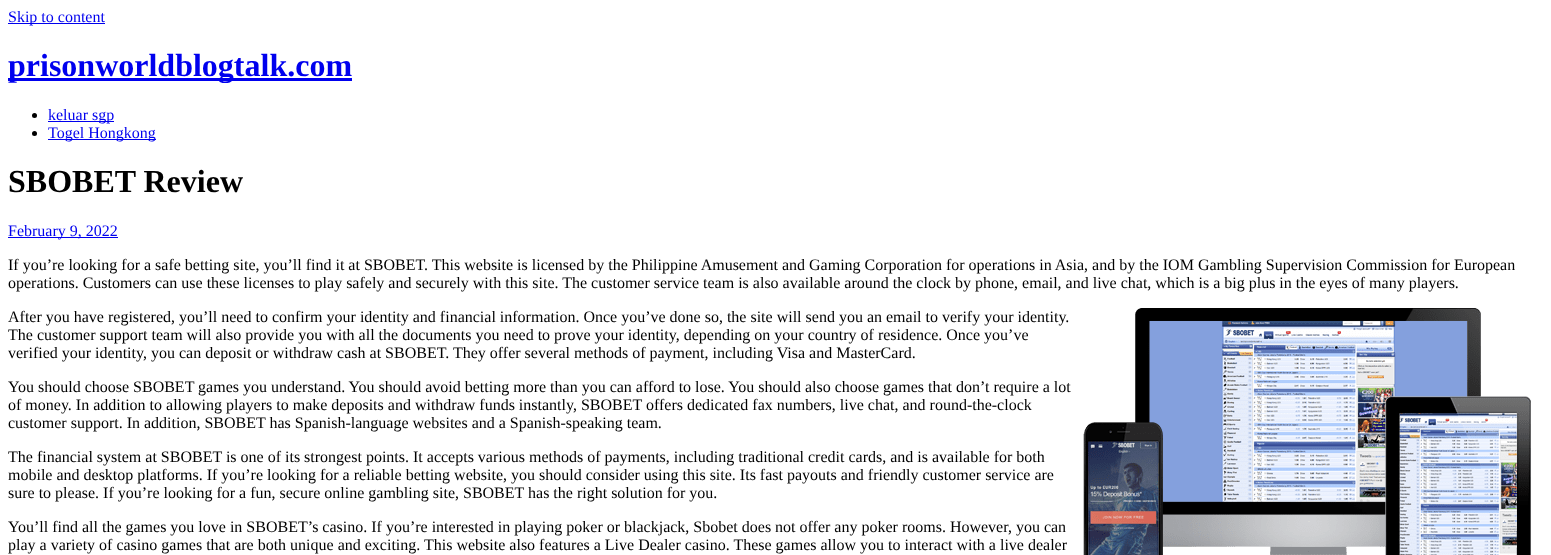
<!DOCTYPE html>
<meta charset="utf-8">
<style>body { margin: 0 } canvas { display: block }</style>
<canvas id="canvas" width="1551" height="555"></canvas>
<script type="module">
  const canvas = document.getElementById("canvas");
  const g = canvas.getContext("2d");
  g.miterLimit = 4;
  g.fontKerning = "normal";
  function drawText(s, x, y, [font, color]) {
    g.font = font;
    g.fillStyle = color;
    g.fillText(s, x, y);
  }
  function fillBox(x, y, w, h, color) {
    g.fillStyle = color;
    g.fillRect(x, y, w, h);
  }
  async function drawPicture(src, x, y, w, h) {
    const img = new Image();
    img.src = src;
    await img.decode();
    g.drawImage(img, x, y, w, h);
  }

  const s1 = ["16px Liberation Serif", "#0000EE"];
  const s2 = ["bold 32px Liberation Serif", "#0000EE"];
  const s3 = ["bold 32px Liberation Serif", "#000000"];
  const s4 = ["16px Liberation Serif", "#000000"];

  fillBox(0, 0, 1551, 555, "#FFFFFF");
  fillBox(8, 23, 97, 1, "#0000EE");
  drawText("Skip to content", 8, 22, s1);
  fillBox(8, 78, 344, 3, "#0000EE");
  drawText("prisonworldblogtalk.com", 8, 76, s2);
  g.fillStyle = "#000000";
  g.beginPath();
  g.arc(34.5, 115.5, 2.5, 0, Math.PI * 2);
  g.fill();
  fillBox(48, 121, 66, 1, "#0000EE");
  drawText("keluar sgp", 48, 120, s1);
  g.fillStyle = "#000000";
  g.beginPath();
  g.arc(34.5, 133.5, 2.5, 0, Math.PI * 2);
  g.fill();
  fillBox(48, 139, 108, 1, "#0000EE");
  drawText("Togel Hongkong", 48, 138, s1);
  drawText("SBOBET Review", 8, 192, s3);
  fillBox(8, 237, 110, 1, "#0000EE");
  drawText("February 9, 2022", 8, 236, s1);
  drawText("If you’re looking for a safe betting site, you’ll find it at SBOBET. This website is licensed by the Philippine Amusement and Gaming Corporation for operations in Asia, and by the IOM Gambling Supervision Commission for European", 8, 270, s4);
  drawText("operations. Customers can use these licenses to play safely and securely with this site. The customer service team is also available around the clock by phone, email, and live chat, which is a big plus in the eyes of many players.", 8, 288, s4);
  drawText("After you have registered, you’ll need to confirm your identity and financial information. Once you’ve done so, the site will send you an email to verify your identity.", 8, 322, s4);
  drawText("The customer support team will also provide you with all the documents you need to prove your identity, depending on your country of residence. Once you’ve", 8, 340, s4);
  drawText("verified your identity, you can deposit or withdraw cash at SBOBET. They offer several methods of payment, including Visa and MasterCard.", 8, 358, s4);
  await drawPicture("pic1.png", 1083, 308, 448, 247);
  drawText("You should choose SBOBET games you understand. You should avoid betting more than you can afford to lose. You should also choose games that don’t require a lot", 8, 392, s4);
  drawText("of money. In addition to allowing players to make deposits and withdraw funds instantly, SBOBET offers dedicated fax numbers, live chat, and round-the-clock", 8, 410, s4);
  drawText("customer support. In addition, SBOBET has Spanish-language websites and a Spanish-speaking team.", 8, 428, s4);
  drawText("The financial system at SBOBET is one of its strongest points. It accepts various methods of payments, including traditional credit cards, and is available for both", 8, 462, s4);
  drawText("mobile and desktop platforms. If you’re looking for a reliable betting website, you should consider using this site. Its fast payouts and friendly customer service are", 8, 480, s4);
  drawText("sure to please. If you’re looking for a fun, secure online gambling site, SBOBET has the right solution for you.", 8, 498, s4);
  drawText("You’ll find all the games you love in SBOBET’s casino. If you’re interested in playing poker or blackjack, Sbobet does not offer any poker rooms. However, you can", 8, 532, s4);
  drawText("play a variety of casino games that are both unique and exciting. This website also features a Live Dealer casino. These games allow you to interact with a live dealer", 8, 550, s4);
</script>
